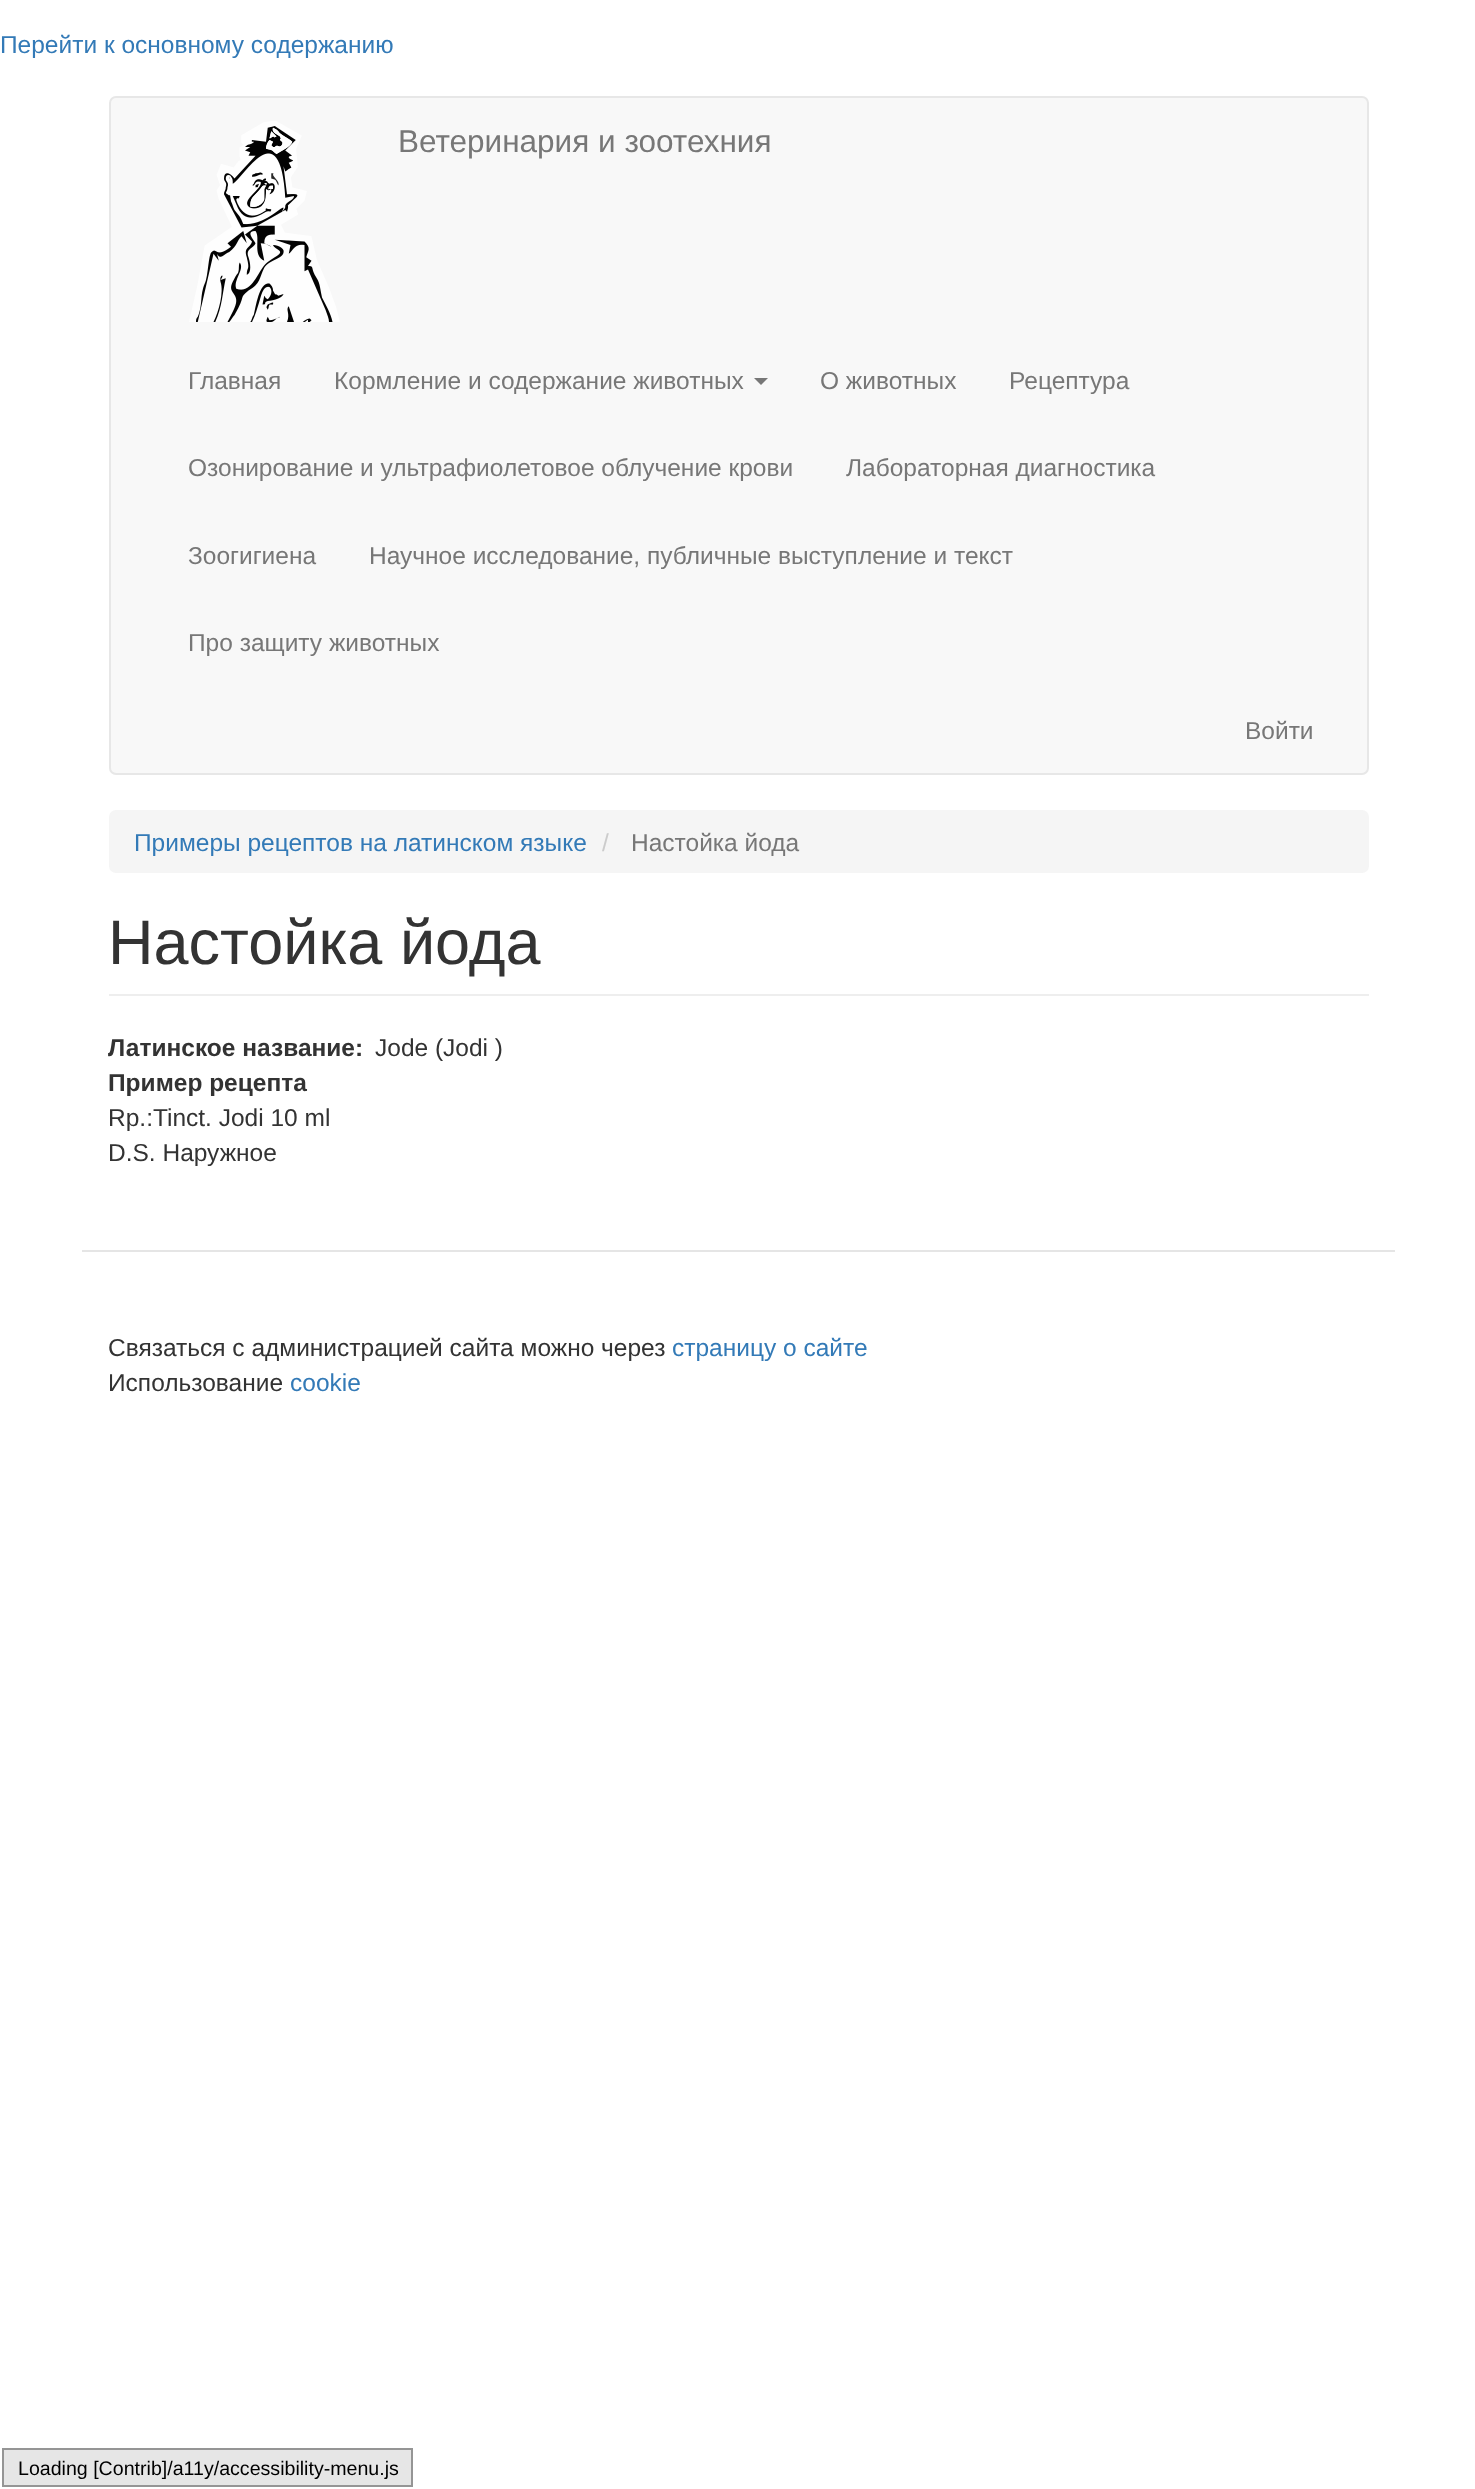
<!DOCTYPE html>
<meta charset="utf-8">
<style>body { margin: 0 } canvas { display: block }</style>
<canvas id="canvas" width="1475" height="2489"></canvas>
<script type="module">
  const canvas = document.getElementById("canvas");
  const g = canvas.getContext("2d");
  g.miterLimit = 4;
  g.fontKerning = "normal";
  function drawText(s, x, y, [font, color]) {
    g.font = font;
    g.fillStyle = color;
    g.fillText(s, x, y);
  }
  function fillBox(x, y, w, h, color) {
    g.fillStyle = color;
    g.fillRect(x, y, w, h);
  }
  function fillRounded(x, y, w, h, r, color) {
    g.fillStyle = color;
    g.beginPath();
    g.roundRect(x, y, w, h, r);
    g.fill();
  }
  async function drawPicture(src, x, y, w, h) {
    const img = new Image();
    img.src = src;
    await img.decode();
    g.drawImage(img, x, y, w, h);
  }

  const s1 = ["24.5px Liberation Sans", "#337AB7"];
  const s2 = ["31.5px Liberation Sans", "#777777"];
  const s3 = ["24.5px Liberation Sans", "#777777"];
  const s4 = ["24.5px Liberation Sans", "#CCCCCC"];
  const s5 = ["63px Liberation Sans", "#333333"];
  const s6 = ["bold 24.5px Liberation Sans", "#333333"];
  const s7 = ["24.5px Liberation Sans", "#333333"];
  const s8 = ["19.6px Liberation Sans", "#000000"];

  fillBox(0, 0, 1475, 2489, "#FFFFFF");
  drawText("Перейти к основному содержанию", 0, 53, s1);
  g.fillStyle = "#F8F8F8";
  g.beginPath();
  g.roundRect(110, 97, 1258, 677, 6);
  g.fill();
  g.strokeStyle = "#E7E7E7";
  g.lineWidth = 2;
  g.stroke();
  await drawPicture("pic1.png", 189, 121, 151, 201);
  drawText("Ветеринария и зоотехния", 398, 152, s2);
  drawText("Главная", 188, 389, s3);
  drawText("Кормление и содержание животных", 334, 389, s3);
  g.beginPath();
  g.moveTo(754, 378);
  g.lineTo(768, 378);
  g.lineTo(761, 385);
  g.closePath();
  g.fill();
  drawText("О животных", 820, 389, s3);
  drawText("Рецептура", 1009, 389, s3);
  drawText("Озонирование и ультрафиолетовое облучение крови", 188, 476, s3);
  drawText("Лабораторная диагностика", 846, 476, s3);
  drawText("Зоогигиена", 188, 564, s3);
  drawText("Научное исследование, публичные выступление и текст", 369, 564, s3);
  drawText("Про защиту животных", 188, 651, s3);
  drawText("Войти", 1245, 739, s3);
  fillRounded(109, 810, 1260, 63, 7, "#F5F5F5");
  drawText("Примеры рецептов на латинском языке", 134, 851, s1);
  drawText("/", 602, 851, s4);
  drawText("Настойка йода", 631, 851, s3);
  fillBox(109, 994, 1260, 2, "#EEEEEE");
  drawText("Настойка йода", 108, 964, s5);
  drawText("Латинское название:", 108, 1056, s6);
  drawText("Jode (Jodi )", 375, 1056, s7);
  drawText("Пример рецепта", 108, 1091, s6);
  drawText("Rp.:Tinct. Jodi 10 ml", 108, 1126, s7);
  drawText("D.S. Наружное", 108, 1161, s7);
  fillBox(82, 1250, 1313, 2, "#E5E5E5");
  drawText("Связаться с администрацией сайта можно через", 108, 1356, s7);
  drawText("страницу о сайте", 672, 1356, s1);
  drawText("Использование", 108, 1391, s7);
  drawText("cookie", 290, 1391, s1);
  g.fillStyle = "#E6E6E6";
  g.beginPath();
  g.rect(3, 2449, 409, 37);
  g.fill();
  g.strokeStyle = "#959595";
  g.stroke();
  drawText("Loading [Contrib]/a11y/accessibility-menu.js", 18, 2475, s8);
</script>
